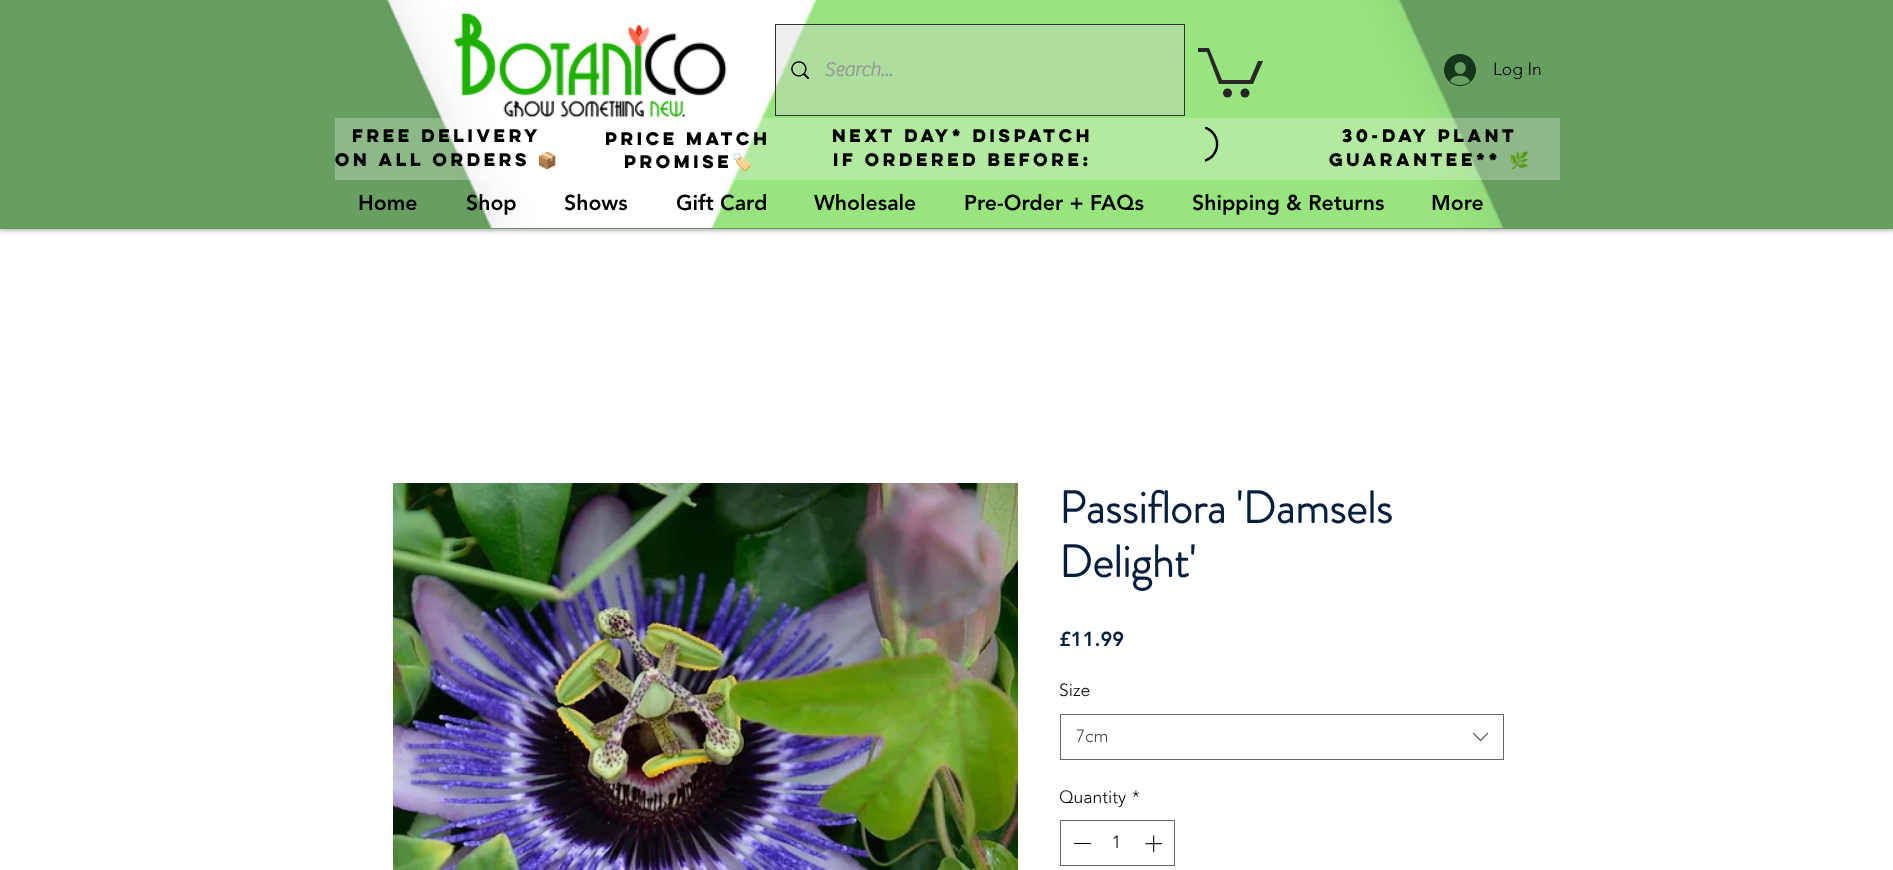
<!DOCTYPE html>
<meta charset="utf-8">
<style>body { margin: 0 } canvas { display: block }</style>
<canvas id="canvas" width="1893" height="870"></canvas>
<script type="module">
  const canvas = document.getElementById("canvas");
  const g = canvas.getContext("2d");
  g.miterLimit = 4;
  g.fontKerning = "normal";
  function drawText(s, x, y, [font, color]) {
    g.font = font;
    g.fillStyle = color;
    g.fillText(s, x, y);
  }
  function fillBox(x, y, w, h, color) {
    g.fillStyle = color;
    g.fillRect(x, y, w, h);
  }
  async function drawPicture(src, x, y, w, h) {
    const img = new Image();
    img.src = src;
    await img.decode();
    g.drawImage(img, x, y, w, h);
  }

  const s1 = ["bold 20px 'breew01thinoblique'", "#999999"];
  const s2 = ["300 17.5px 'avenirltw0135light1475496'", "#000000"];
  const s3 = ["bold 16.25px 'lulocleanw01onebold'", "#000000"];
  const s4 = ["16.25px Noto Color Emoji", "#000000"];
  const s5 = ["900 21.25px 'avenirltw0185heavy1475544'", "#000000"];
  const s6 = ["bold 45px 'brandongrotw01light'", "#041F3E"];
  const s7 = ["900 20px 'avenirltw0185heavy1475544'", "#041F3E"];
  const s8 = ["300 17.5px 'avenirltw0135light1475496'", "#444444"];

  fillBox(0, 0, 1893, 870, "#FFFFFF");
  g.fillStyle = "rgba(0, 0, 0, 0.5)";
  g.filter = "blur(3px)";
  g.beginPath();
  g.rect(0, 0, 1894, 229);
  g.fill();
  g.filter = "none";
  fillBox(0, 0, 1893, 229, "#669F60");
  await drawPicture("pic1.png", 385, 0, 1119, 228);
  await drawPicture("pic2.png", 453, 13, 274, 105);
  g.strokeStyle = "#323232";
  g.strokeRect(775.5, 24.5, 409, 91);
  fillBox(776, 25, 408, 90, "rgba(212, 212, 212, 0.37)");
  await drawPicture("pic3.png", 791, 61, 18, 18);
  drawText("Search...", 824, 76, s1);
  g.fillStyle = "#282626";
  g.beginPath();
  g.moveTo(1263, 61);
  g.lineTo(1253, 84);
  g.lineTo(1219, 84);
  g.lineTo(1207, 52);
  g.lineTo(1198, 52);
  g.lineTo(1198, 48);
  g.lineTo(1209, 48);
  g.lineTo(1222, 80);
  g.lineTo(1250, 80);
  g.lineTo(1258, 61);
  g.fill();
  g.beginPath();
  g.arc(1245, 93, 4.5, 0, Math.PI * 2);
  g.fill();
  g.beginPath();
  g.arc(1227.5, 93, 4.5, 0, Math.PI * 2);
  g.fill();
  await drawPicture("pic4.png", 1444, 54, 32, 32);
  drawText("Log In", 1493, 75, s2);
  fillBox(335, 118, 1225, 62, "rgba(255, 255, 255, 0.26)");
  drawText("FREE Delivery", 352, 142, s3);
  drawText("On All Orders", 335, 166, s3);
  drawText("📦", 537, 166, s4);
  drawText("Price Match", 605, 145, s3);
  drawText("Promise", 624, 168, s3);
  drawText("🏷️", 732, 168, s4);
  drawText("NEXT DAY* Dispatch", 832, 142, s3);
  drawText("If Ordered Before:", 833, 166, s3);
  await drawPicture("pic5.png", 1204, 126, 15, 36);
  drawText("30-Day Plant", 1342, 142, s3);
  drawText("Guarantee**", 1329, 166, s3);
  drawText("🌿", 1509, 166, s4);
  drawText("Home", 358, 210, s5);
  drawText("Shop", 466, 210, s5);
  drawText("Shows", 564, 210, s5);
  drawText("Gift Card", 676, 210, s5);
  drawText("Wholesale", 814, 210, s5);
  drawText("Pre-Order + FAQs", 964, 210, s5);
  drawText("Shipping & Returns", 1192, 210, s5);
  drawText("More", 1431, 210, s5);
  await drawPicture("pic6.png", 393, 483, 625, 387);
  drawText("Passiflora 'Damsels", 1059, 523, s6);
  drawText("Delight'", 1059, 577, s6);
  drawText("£11.99", 1059, 646, s7);
  drawText("Size", 1059, 696, s2);
  g.strokeStyle = "#666666";
  g.strokeRect(1060.5, 714.5, 443, 45);
  drawText("7cm", 1076, 742, s8);
  await drawPicture("pic7.png", 1472, 732, 17, 10);
  drawText("Quantity", 1059, 803, s2);
  drawText("*", 1132, 803, s2);
  g.strokeRect(1060.5, 820.5, 114, 45);
  fillBox(1074, 843, 17, 1, "#000000");
  drawText("1", 1112, 848, s2);
  await drawPicture("pic8.png", 1145, 835, 17, 17);
</script>
